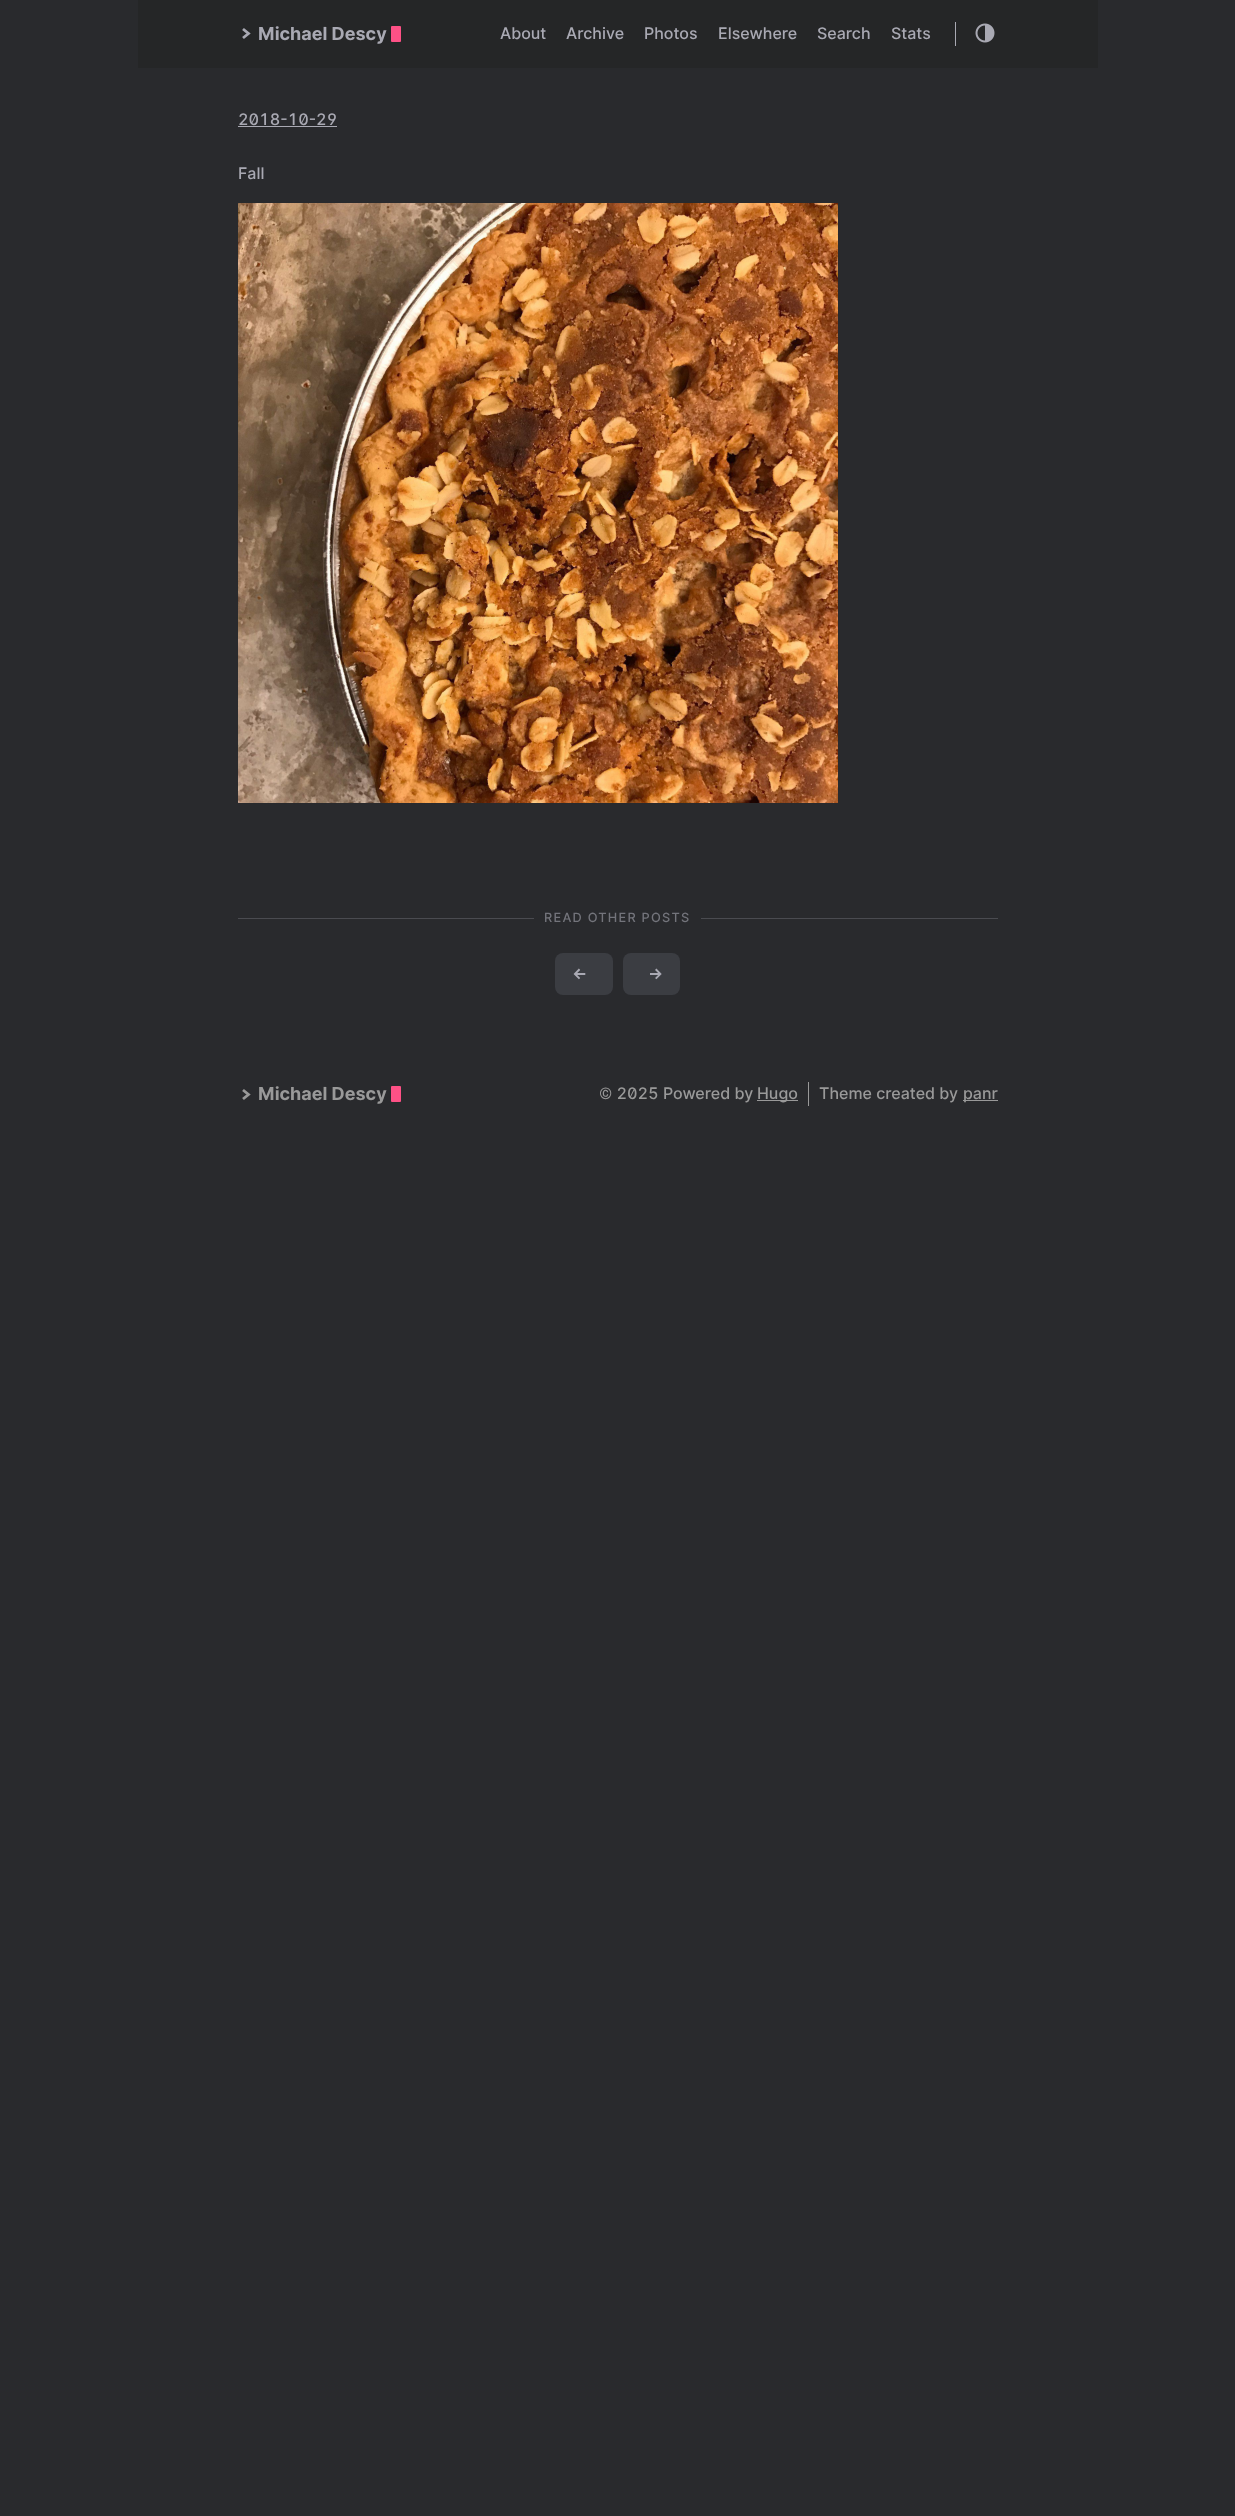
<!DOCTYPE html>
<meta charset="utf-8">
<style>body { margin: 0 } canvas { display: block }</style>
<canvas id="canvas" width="1235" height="2516"></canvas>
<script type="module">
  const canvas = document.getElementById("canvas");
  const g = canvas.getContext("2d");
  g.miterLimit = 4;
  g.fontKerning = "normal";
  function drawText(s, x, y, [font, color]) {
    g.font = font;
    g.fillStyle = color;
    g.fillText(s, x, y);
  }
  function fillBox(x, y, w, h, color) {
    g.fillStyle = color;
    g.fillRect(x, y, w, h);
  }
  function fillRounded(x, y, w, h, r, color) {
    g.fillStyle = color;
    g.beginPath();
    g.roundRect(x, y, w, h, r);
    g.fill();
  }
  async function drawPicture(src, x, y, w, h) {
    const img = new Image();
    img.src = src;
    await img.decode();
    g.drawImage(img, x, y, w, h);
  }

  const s1 = ["bold 18px Inter", "#A9A9B3"];
  const s2 = ["500 16px Inter", "#A9A9B3"];
  const s3 = ["500 16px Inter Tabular", "#A9A9B3"];
  const s4 = ["500 12.75px Inter", "#73747B"];
  const s5 = ["bold 16px Inter", "#A9A9B3"];
  const s6 = ["bold 18px Inter", "#999999"];
  const s7 = ["500 16px Inter Tabular", "#999999"];
  const s8 = ["500 16px Inter", "#999999"];

  fillBox(0, 0, 1235, 2516, "#292A2D");
  fillBox(138, 0, 960, 68, "#252627");
  g.beginPath();
  g.moveTo(243, 29);
  g.lineTo(248.5, 33.5);
  g.lineTo(243, 38);
  g.strokeStyle = "#A9A9B3";
  g.lineWidth = 2.8;
  g.stroke();
  drawText("Michael Descy", 258, 40, s1);
  fillRounded(391, 26, 10, 16, 1, "#FE5186");
  fillBox(955, 22, 1, 24, "#A9A9B3");
  drawText("About", 500, 39, s2);
  drawText("Archive", 566, 39, s2);
  drawText("Photos", 644, 39, s2);
  drawText("Elsewhere", 718, 39, s2);
  drawText("Search", 817, 39, s2);
  drawText("Stats", 891, 39, s2);
  await drawPicture("pic1.png", 975, 23, 20, 20);
  drawText("2018-10-29", 238, 125, s3);
  fillBox(238, 126, 99, 1, "#A9A9B3");
  drawText("Fall", 238, 179, s2);
  await drawPicture("pic2.png", 238, 203, 600, 600);
  fillBox(238, 918, 760, 1, "#4A4B50");
  fillBox(534, 918, 167, 1, "#292A2D");
  g.letterSpacing = "1.25px";
  drawText("READ OTHER POSTS", 544, 922, s4);
  fillRounded(555, 953, 58, 42, 8, "#3B3D42");
  g.letterSpacing = "0px";
  drawText("←", 572, 979, s5);
  fillRounded(623, 953, 57, 42, 8, "#3B3D42");
  drawText("→", 648, 979, s5);
  g.beginPath();
  g.moveTo(243, 1090);
  g.lineTo(248.5, 1094.5);
  g.lineTo(243, 1099);
  g.strokeStyle = "#999999";
  g.stroke();
  drawText("Michael Descy", 258, 1100, s6);
  fillRounded(391, 1086, 10, 16, 1, "#FE5186");
  fillBox(808, 1082, 1, 24, "#999999");
  drawText("© 2025 Powered by", 599, 1099, s7);
  fillBox(757, 1100, 41, 1, "#999999");
  drawText("Hugo", 757, 1099, s8);
  drawText("Theme created by", 819, 1099, s8);
  fillBox(963, 1100, 35, 1, "#999999");
  drawText("panr", 963, 1099, s8);
</script>
